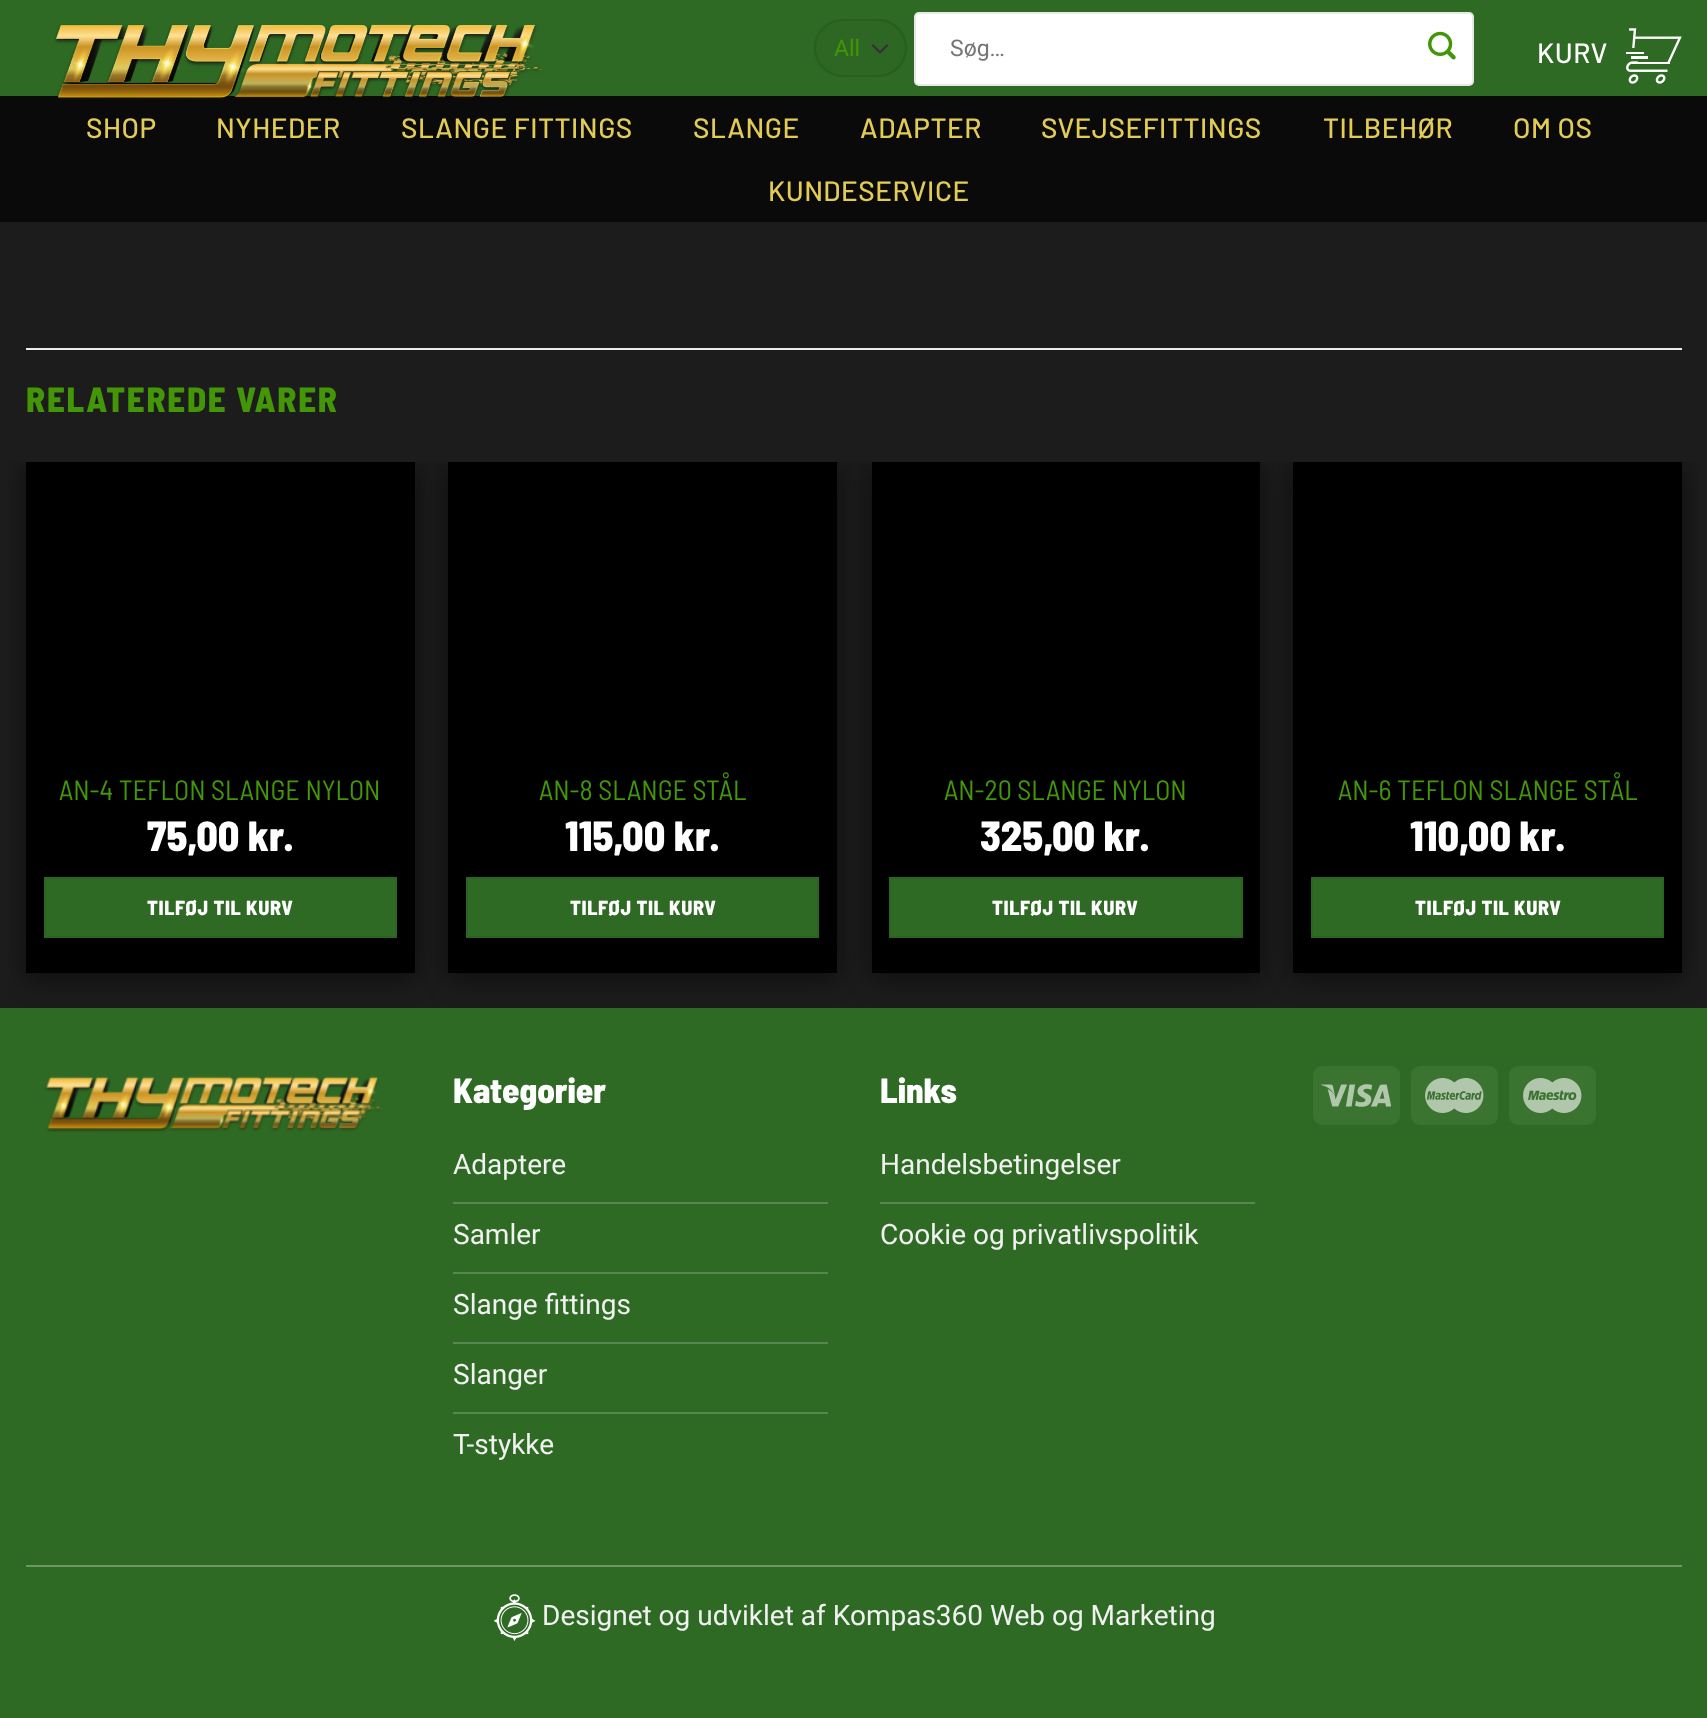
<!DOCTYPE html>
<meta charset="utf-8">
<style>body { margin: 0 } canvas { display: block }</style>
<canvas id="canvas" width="1707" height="1718"></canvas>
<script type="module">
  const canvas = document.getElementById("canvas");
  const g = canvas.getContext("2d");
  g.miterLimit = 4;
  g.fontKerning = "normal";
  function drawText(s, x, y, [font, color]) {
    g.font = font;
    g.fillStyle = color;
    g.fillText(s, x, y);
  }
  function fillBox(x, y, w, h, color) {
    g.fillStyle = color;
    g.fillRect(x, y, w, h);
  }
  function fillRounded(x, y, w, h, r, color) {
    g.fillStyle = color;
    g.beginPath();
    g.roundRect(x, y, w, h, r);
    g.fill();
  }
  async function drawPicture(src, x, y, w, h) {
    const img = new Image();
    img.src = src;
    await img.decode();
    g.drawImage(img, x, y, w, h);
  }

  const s1 = ["23px Roboto", "#439607"];
  const s2 = ["23px Roboto", "#757575"];
  const s3 = ["500 28px Barlow", "#FFFFFF"];
  const s4 = ["500 28px Barlow", "#E2CC54"];
  const s5 = ["800 35px Barlow Semi Condensed", "#439607"];
  const s6 = ["28px Barlow Semi Condensed", "#439607"];
  const s7 = ["800 42px Barlow Semi Condensed", "#FFFFFF"];
  const s8 = ["800 20.25px Barlow Semi Condensed", "#FFFFFF"];
  const s9 = ["800 35px Barlow Semi Condensed", "#FFFFFF"];
  const s10 = ["28px Roboto", "#F1F1F1"];

  fillBox(0, 0, 1707, 1718, "#1C1C1C");
  fillBox(0, 0, 1707, 96, "#2E6A24");
  fillBox(0, 96, 1707, 126, "#0A0A0A");
  await drawPicture("pic1.png", 54, 24, 488, 76);
  fillRounded(814, 19, 93, 58, 29, "#2D6723");
  g.beginPath();
  g.moveTo(873, 45.5);
  g.lineTo(880, 52.5);
  g.lineTo(887, 45.5);
  g.strokeStyle = "#333333";
  g.lineWidth = 2.3;
  g.lineCap = "round";
  g.lineJoin = "round";
  g.stroke();
  g.beginPath();
  g.roundRect(815, 20, 91, 56, 28);
  g.strokeStyle = "#295E20";
  g.lineWidth = 2;
  g.lineJoin = "miter";
  g.stroke();
  drawText("All", 834, 56, s1);
  fillRounded(914, 12, 560, 74, 5, "#FFFFFF");
  g.beginPath();
  g.roundRect(915, 13, 558, 72, 4);
  g.strokeStyle = "rgba(0, 0, 0, 0.09)";
  g.stroke();
  drawText("Søg…", 950, 56, s2);
  await drawPicture("pic2.png", 1428, 31, 28, 29);
  g.letterSpacing = "0.5px";
  drawText("KURV", 1537, 63, s3);
  await drawPicture("pic3.png", 1626, 28, 56, 56);
  drawText("SHOP", 86, 138, s4);
  drawText("NYHEDER", 216, 138, s4);
  drawText("SLANGE FITTINGS", 401, 138, s4);
  drawText("SLANGE", 693, 138, s4);
  drawText("ADAPTER", 860, 138, s4);
  drawText("SVEJSEFITTINGS", 1041, 138, s4);
  drawText("TILBEHØR", 1323, 138, s4);
  drawText("OM OS", 1513, 138, s4);
  drawText("KUNDESERVICE", 768, 201, s4);
  fillBox(26, 348, 1656, 2, "#ECECEC");
  g.letterSpacing = "1.75px";
  drawText("RELATEREDE VARER", 26, 412, s5);
  g.save();
  g.beginPath();
  g.rect(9, 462, 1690, 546);
  g.clip();
  g.fillStyle = "rgba(0, 0, 0, 0.53)";
  g.filter = "blur(13px)";
  g.beginPath();
  g.rect(26, 467, 389, 511);
  g.fill();
  g.filter = "none";
  g.restore();
  fillBox(26, 462, 389, 511, "#000000");
  g.letterSpacing = "0px";
  drawText("AN-4 TEFLON SLANGE NYLON", 59, 800, s6);
  drawText("75,00 kr.", 147, 851, s7);
  g.fillStyle = "#2E6A24";
  g.beginPath();
  g.rect(45, 878, 351, 59);
  g.fill();
  g.strokeStyle = "#2C6522";
  g.stroke();
  g.letterSpacing = "0.6px";
  drawText("TILFØJ TIL KURV", 147, 915, s8);
  g.save();
  g.beginPath();
  g.rect(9, 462, 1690, 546);
  g.clip();
  g.fillStyle = "rgba(0, 0, 0, 0.53)";
  g.filter = "blur(13px)";
  g.beginPath();
  g.rect(448, 467, 389, 511);
  g.fill();
  g.filter = "none";
  g.restore();
  fillBox(448, 462, 389, 511, "#000000");
  g.letterSpacing = "0px";
  drawText("AN-8 SLANGE STÅL", 539, 800, s6);
  drawText("115,00 kr.", 565, 851, s7);
  g.fillStyle = "#2E6A24";
  g.beginPath();
  g.rect(467, 878, 351, 59);
  g.fill();
  g.stroke();
  g.letterSpacing = "0.6px";
  drawText("TILFØJ TIL KURV", 570, 915, s8);
  g.save();
  g.beginPath();
  g.rect(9, 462, 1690, 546);
  g.clip();
  g.fillStyle = "rgba(0, 0, 0, 0.53)";
  g.filter = "blur(13px)";
  g.beginPath();
  g.rect(872, 467, 388, 511);
  g.fill();
  g.filter = "none";
  g.restore();
  fillBox(872, 462, 388, 511, "#000000");
  g.letterSpacing = "0px";
  drawText("AN-20 SLANGE NYLON", 944, 800, s6);
  drawText("325,00 kr.", 980, 851, s7);
  g.fillStyle = "#2E6A24";
  g.beginPath();
  g.rect(890, 878, 352, 59);
  g.fill();
  g.stroke();
  g.letterSpacing = "0.6px";
  drawText("TILFØJ TIL KURV", 992, 915, s8);
  g.save();
  g.beginPath();
  g.rect(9, 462, 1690, 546);
  g.clip();
  g.fillStyle = "rgba(0, 0, 0, 0.53)";
  g.filter = "blur(13px)";
  g.beginPath();
  g.rect(1293, 467, 389, 511);
  g.fill();
  g.filter = "none";
  g.restore();
  fillBox(1293, 462, 389, 511, "#000000");
  g.letterSpacing = "0px";
  drawText("AN-6 TEFLON SLANGE STÅL", 1338, 800, s6);
  drawText("110,00 kr.", 1410, 851, s7);
  g.fillStyle = "#2E6A24";
  g.beginPath();
  g.rect(1312, 878, 351, 59);
  g.fill();
  g.stroke();
  g.letterSpacing = "0.6px";
  drawText("TILFØJ TIL KURV", 1415, 915, s8);
  fillBox(0, 1008, 1707, 710, "#2E6A24");
  await drawPicture("pic4.png", 45, 1076, 338, 56);
  g.letterSpacing = "0px";
  drawText("Kategorier", 453, 1103, s9);
  fillBox(453, 1202, 375, 2, "#588850");
  drawText("Adaptere", 453, 1174, s10);
  fillBox(453, 1272, 375, 2, "#588850");
  drawText("Samler", 453, 1244, s10);
  fillBox(453, 1342, 375, 2, "#588850");
  drawText("Slange fittings", 453, 1314, s10);
  fillBox(453, 1412, 375, 2, "#588850");
  drawText("Slanger", 453, 1384, s10);
  drawText("T-stykke", 453, 1454, s10);
  drawText("Links", 880, 1103, s9);
  fillBox(880, 1202, 375, 2, "#588850");
  drawText("Handelsbetingelser", 880, 1174, s10);
  drawText("Cookie og privatlivspolitik", 880, 1244, s10);
  fillRounded(1313, 1066, 87, 59, 9, "#3B7331");
  await drawPicture("pic5.png", 1321, 1084, 70, 23);
  fillRounded(1411, 1066, 87, 59, 9, "#3B7331");
  await drawPicture("pic6.png", 1425, 1078, 59, 35);
  fillRounded(1509, 1066, 87, 59, 9, "#3B7331");
  await drawPicture("pic7.png", 1523, 1078, 59, 35);
  fillBox(26, 1565, 1656, 2, "#6D9766");
  await drawPicture("pic8.png", 494, 1594, 42, 47);
  drawText("Designet og udviklet af Kompas360 Web og Marketing", 542, 1625, s10);
</script>
